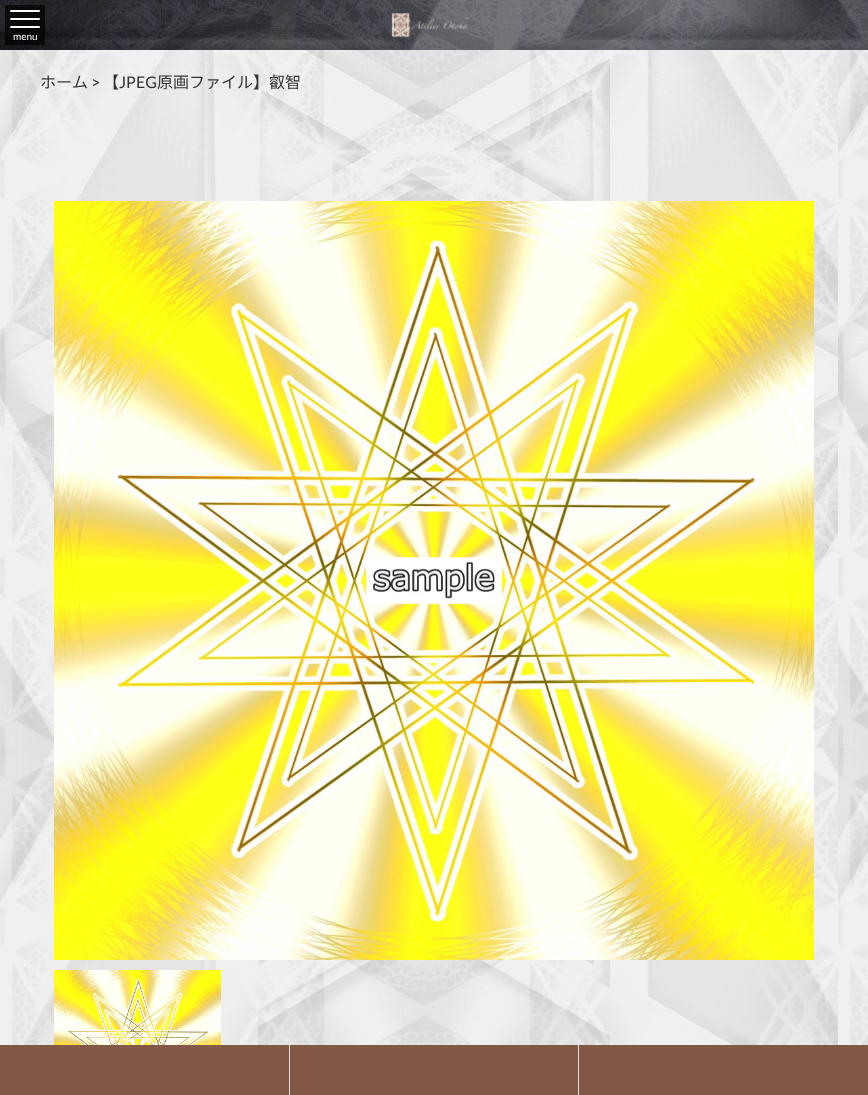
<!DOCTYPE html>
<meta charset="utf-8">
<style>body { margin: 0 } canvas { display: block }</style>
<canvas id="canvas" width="868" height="1095"></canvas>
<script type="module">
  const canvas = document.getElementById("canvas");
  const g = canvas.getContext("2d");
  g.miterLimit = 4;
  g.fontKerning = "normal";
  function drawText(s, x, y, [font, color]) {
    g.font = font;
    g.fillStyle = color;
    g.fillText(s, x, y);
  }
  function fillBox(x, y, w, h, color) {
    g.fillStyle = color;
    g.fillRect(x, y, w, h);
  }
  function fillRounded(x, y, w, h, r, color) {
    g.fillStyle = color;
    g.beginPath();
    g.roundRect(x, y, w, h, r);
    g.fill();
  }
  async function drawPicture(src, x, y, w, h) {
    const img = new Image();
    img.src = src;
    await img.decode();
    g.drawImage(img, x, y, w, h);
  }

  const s1 = ["10px Lato", "#FFFFFF"];
  const s2 = ["16px Noto Sans JP", "#333333"];
  const s3 = ["16px Lato", "#333333"];

  fillBox(0, 0, 868, 1095, "#FFFFFF");
  await drawPicture("pic1.png", 0, 50, 868, 995);
  await drawPicture("pic2.png", 0, 0, 868, 50);
  fillBox(5, 5, 40, 40, "rgba(0, 0, 0, 0.7)");
  fillRounded(10, 10, 30, 2, 1, "#FFFFFF");
  fillRounded(10, 18, 30, 2, 1, "#FFFFFF");
  fillRounded(10, 26, 30, 2, 1, "#FFFFFF");
  drawText("menu", 13, 40, s1);
  await drawPicture("pic3.png", 391, 12, 79, 26);
  drawText("ホーム", 40, 88, s2);
  drawText(">", 91, 88, s3);
  drawText("【", 103, 88, s2);
  drawText("JPEG", 119, 88, s3);
  drawText("原画ファイル】叡智", 157, 88, s2);
  await drawPicture("pic4.png", 54, 201, 760, 759);
  await drawPicture("pic5.png", 54, 970, 167, 75);
  fillBox(0, 1045, 289, 50, "#825847");
  fillBox(290, 1045, 288, 50, "#825847");
  fillBox(289, 1045, 1, 50, "#DDDDDD");
  fillBox(579, 1045, 289, 50, "#825847");
  fillBox(578, 1045, 1, 50, "#DDDDDD");
</script>
